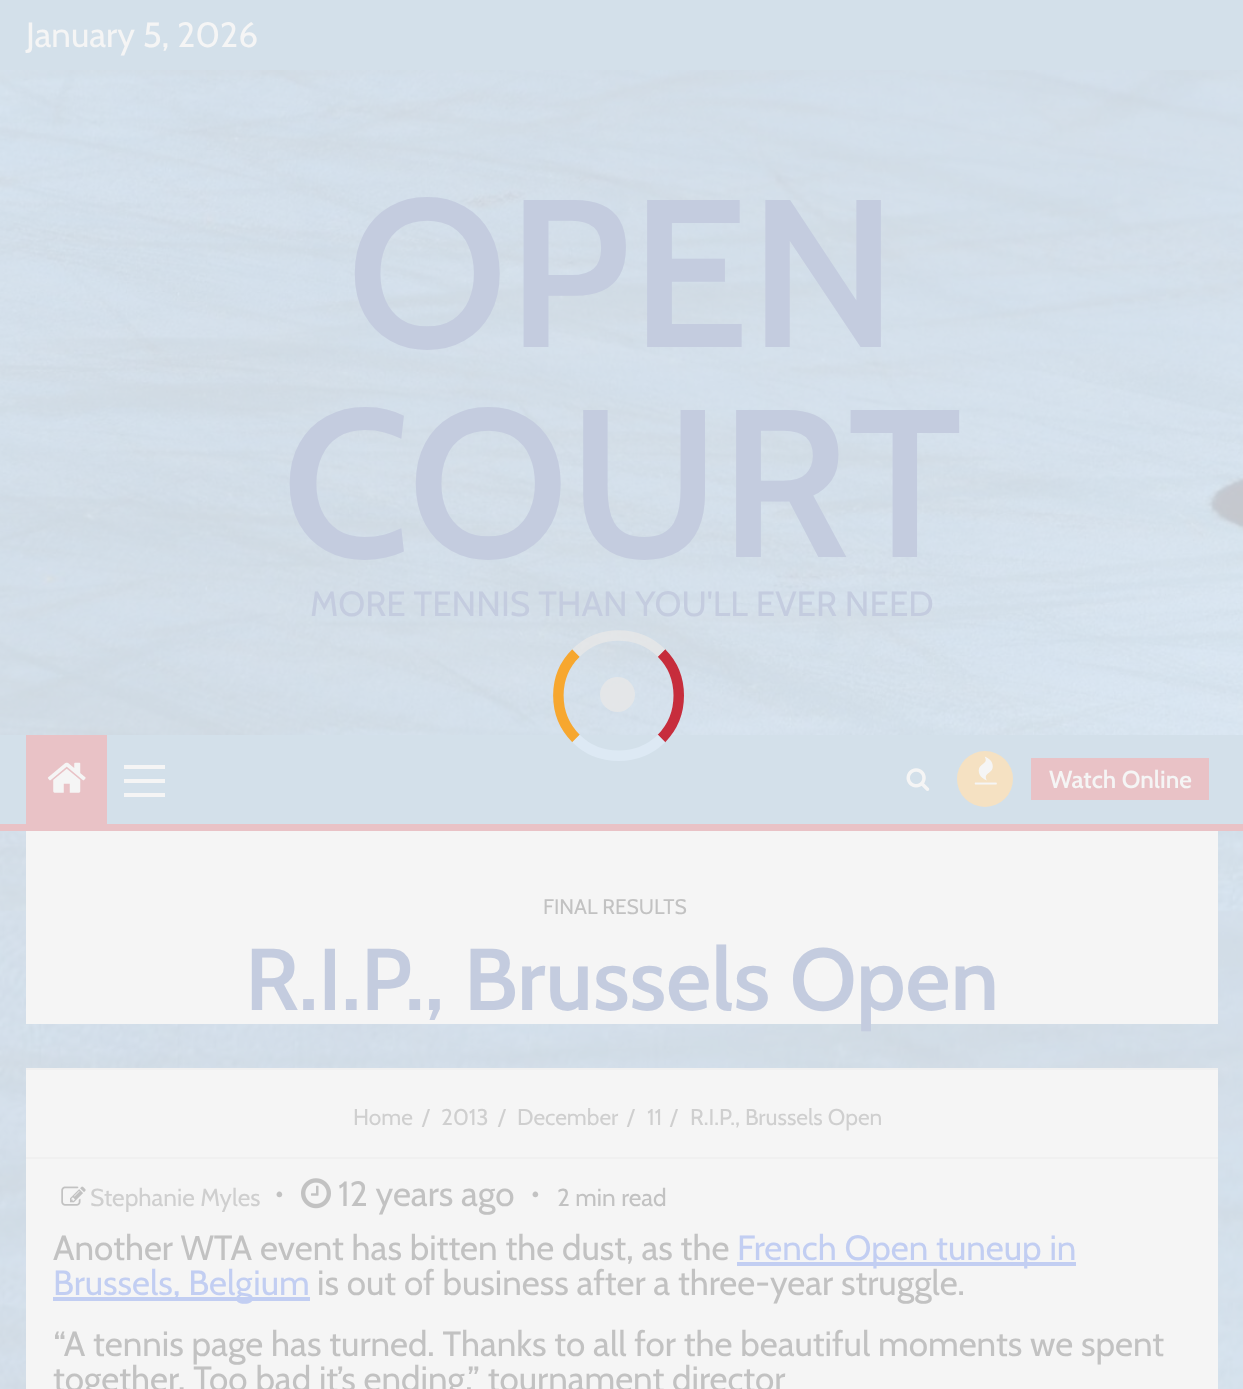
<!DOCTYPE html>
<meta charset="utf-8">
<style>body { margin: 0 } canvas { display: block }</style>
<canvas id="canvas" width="1243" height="1389"></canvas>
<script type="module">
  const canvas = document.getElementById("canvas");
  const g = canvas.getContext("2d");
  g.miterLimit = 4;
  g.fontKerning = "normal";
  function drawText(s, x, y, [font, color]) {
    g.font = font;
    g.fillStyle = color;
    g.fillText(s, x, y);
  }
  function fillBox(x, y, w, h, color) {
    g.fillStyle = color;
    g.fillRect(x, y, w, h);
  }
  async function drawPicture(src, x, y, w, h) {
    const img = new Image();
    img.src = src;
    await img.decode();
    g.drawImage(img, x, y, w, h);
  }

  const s1 = ["35px Cabin", "#F5F5F5"];
  const s2 = ["600 210px Cabin", "#C4CCDF"];
  const s3 = ["35px Cabin", "#C4CCDF"];
  const s4 = ["600 24.5px Cabin", "#F5F5F5"];
  const s5 = ["21px Cabin", "#C2C2C2"];
  const s6 = ["600 87.5px Cabin", "#C4CCDF"];
  const s7 = ["22.75px Cabin", "#CFCFCF"];
  const s8 = ["24.5px Cabin", "#CFCFCF"];
  const s9 = ["bold 35px Liberation Serif", "#C2C2C2"];
  const s10 = ["35px Cabin", "#C2C2C2"];
  const s11 = ["24.5px Cabin", "#C2C2C2"];
  const s12 = ["35px Cabin", "#C2CEF2"];

  fillBox(0, 0, 1243, 1389, "#FFFFFF");
  await drawPicture("pic1.png", 0, 831, 1243, 558);
  fillBox(0, 0, 1243, 70, "#D3E0EA");
  drawText("January 5, 2026", 26, 47, s1);
  await drawPicture("pic2.png", 0, 70, 1243, 665);
  drawText("OPEN", 347, 347, s2);
  drawText("COURT", 282, 557, s2);
  drawText("MORE TENNIS THAN YOU'LL EVER NEED", 310, 616, s3);
  fillBox(0, 735, 1243, 89, "#D3E0EA");
  fillBox(0, 824, 1243, 7, "#E9C2C6");
  fillBox(26, 735, 81, 89, "#E9C2C6");
  await drawPicture("pic3.png", 47, 762, 39, 31);
  fillBox(124, 779, 41, 4, "#F5F5F5");
  fillBox(124, 765, 41, 4, "#F5F5F5");
  fillBox(124, 793, 41, 4, "#F5F5F5");
  await drawPicture("pic4.png", 906, 768, 24, 23);
  g.fillStyle = "#F5E1C2";
  g.beginPath();
  g.arc(985, 779, 28, 0, Math.PI * 2);
  g.fill();
  await drawPicture("pic5.png", 974, 756, 23, 29);
  fillBox(1031, 758, 178, 42, "#E9C2C6");
  drawText("Watch Online", 1049, 788, s4);
  fillBox(26, 831, 1192, 193, "#F5F5F5");
  drawText("FINAL RESULTS", 543, 914, s5);
  drawText("R.I.P., Brussels Open", 245, 1010, s6);
  fillBox(26, 1070, 1192, 87, "#F5F5F5");
  fillBox(26, 1068, 1192, 2, "#F0F0F0");
  fillBox(26, 1157, 1192, 2, "#F0F0F0");
  drawText("Home", 353, 1125, s7);
  drawText("/", 422, 1125, s7);
  drawText("2013", 441, 1125, s7);
  drawText("/", 498, 1125, s7);
  drawText("December", 517, 1125, s7);
  drawText("/", 627, 1125, s7);
  drawText("11", 647, 1125, s7);
  drawText("/", 670, 1125, s7);
  drawText("R.I.P., Brussels Open", 690, 1125, s7);
  fillBox(26, 1159, 1192, 230, "#F5F5F5");
  await drawPicture("pic6.png", 61, 1186, 25, 20);
  drawText("Stephanie Myles", 90, 1206, s8);
  drawText("∙", 275, 1206, s9);
  await drawPicture("pic7.png", 301, 1178, 30, 31);
  drawText("12 years ago", 338, 1206, s10);
  drawText("∙", 531, 1206, s9);
  drawText("2 min read", 557, 1206, s11);
  drawText("Another WTA event has bitten the dust, as the", 53, 1260, s10);
  fillBox(737, 1262, 339, 4, "#C2CEF2");
  drawText("French Open tuneup in", 737, 1260, s12);
  fillBox(53, 1297, 257, 4, "#C2CEF2");
  drawText("Brussels, Belgium", 53, 1295, s12);
  drawText("is out of business after a three-year struggle.", 317, 1295, s10);
  drawText("“A tennis page has turned. Thanks to all for the beautiful moments we spent", 53, 1356, s10);
  drawText("together. Too bad it’s ending,” tournament director", 53, 1391, s10);
  g.beginPath();
  g.moveTo(661.5, 653);
  g.bezierCurveTo(684.5, 676, 684.5, 715, 661.5, 738.5);
  g.strokeStyle = "rgba(195, 0, 16, 0.8)";
  g.lineWidth = 10.5;
  g.stroke();
  g.beginPath();
  g.moveTo(576, 738.5);
  g.bezierCurveTo(552.5, 715, 552.5, 676, 576, 653);
  g.strokeStyle = "rgba(255, 152, 0, 0.8)";
  g.stroke();
  g.beginPath();
  g.moveTo(576, 653);
  g.bezierCurveTo(599, 629.5, 638, 629.5, 661.5, 653);
  g.strokeStyle = "rgba(231, 231, 231, 0.8)";
  g.stroke();
  g.beginPath();
  g.moveTo(661.5, 738.5);
  g.bezierCurveTo(638, 761.5, 599, 761.5, 576, 738.5);
  g.strokeStyle = "#DDE9F4";
  g.stroke();
  g.fillStyle = "rgba(231, 231, 231, 0.8)";
  g.beginPath();
  g.arc(617.5, 694.5, 17.5, 0, Math.PI * 2);
  g.fill();
</script>
